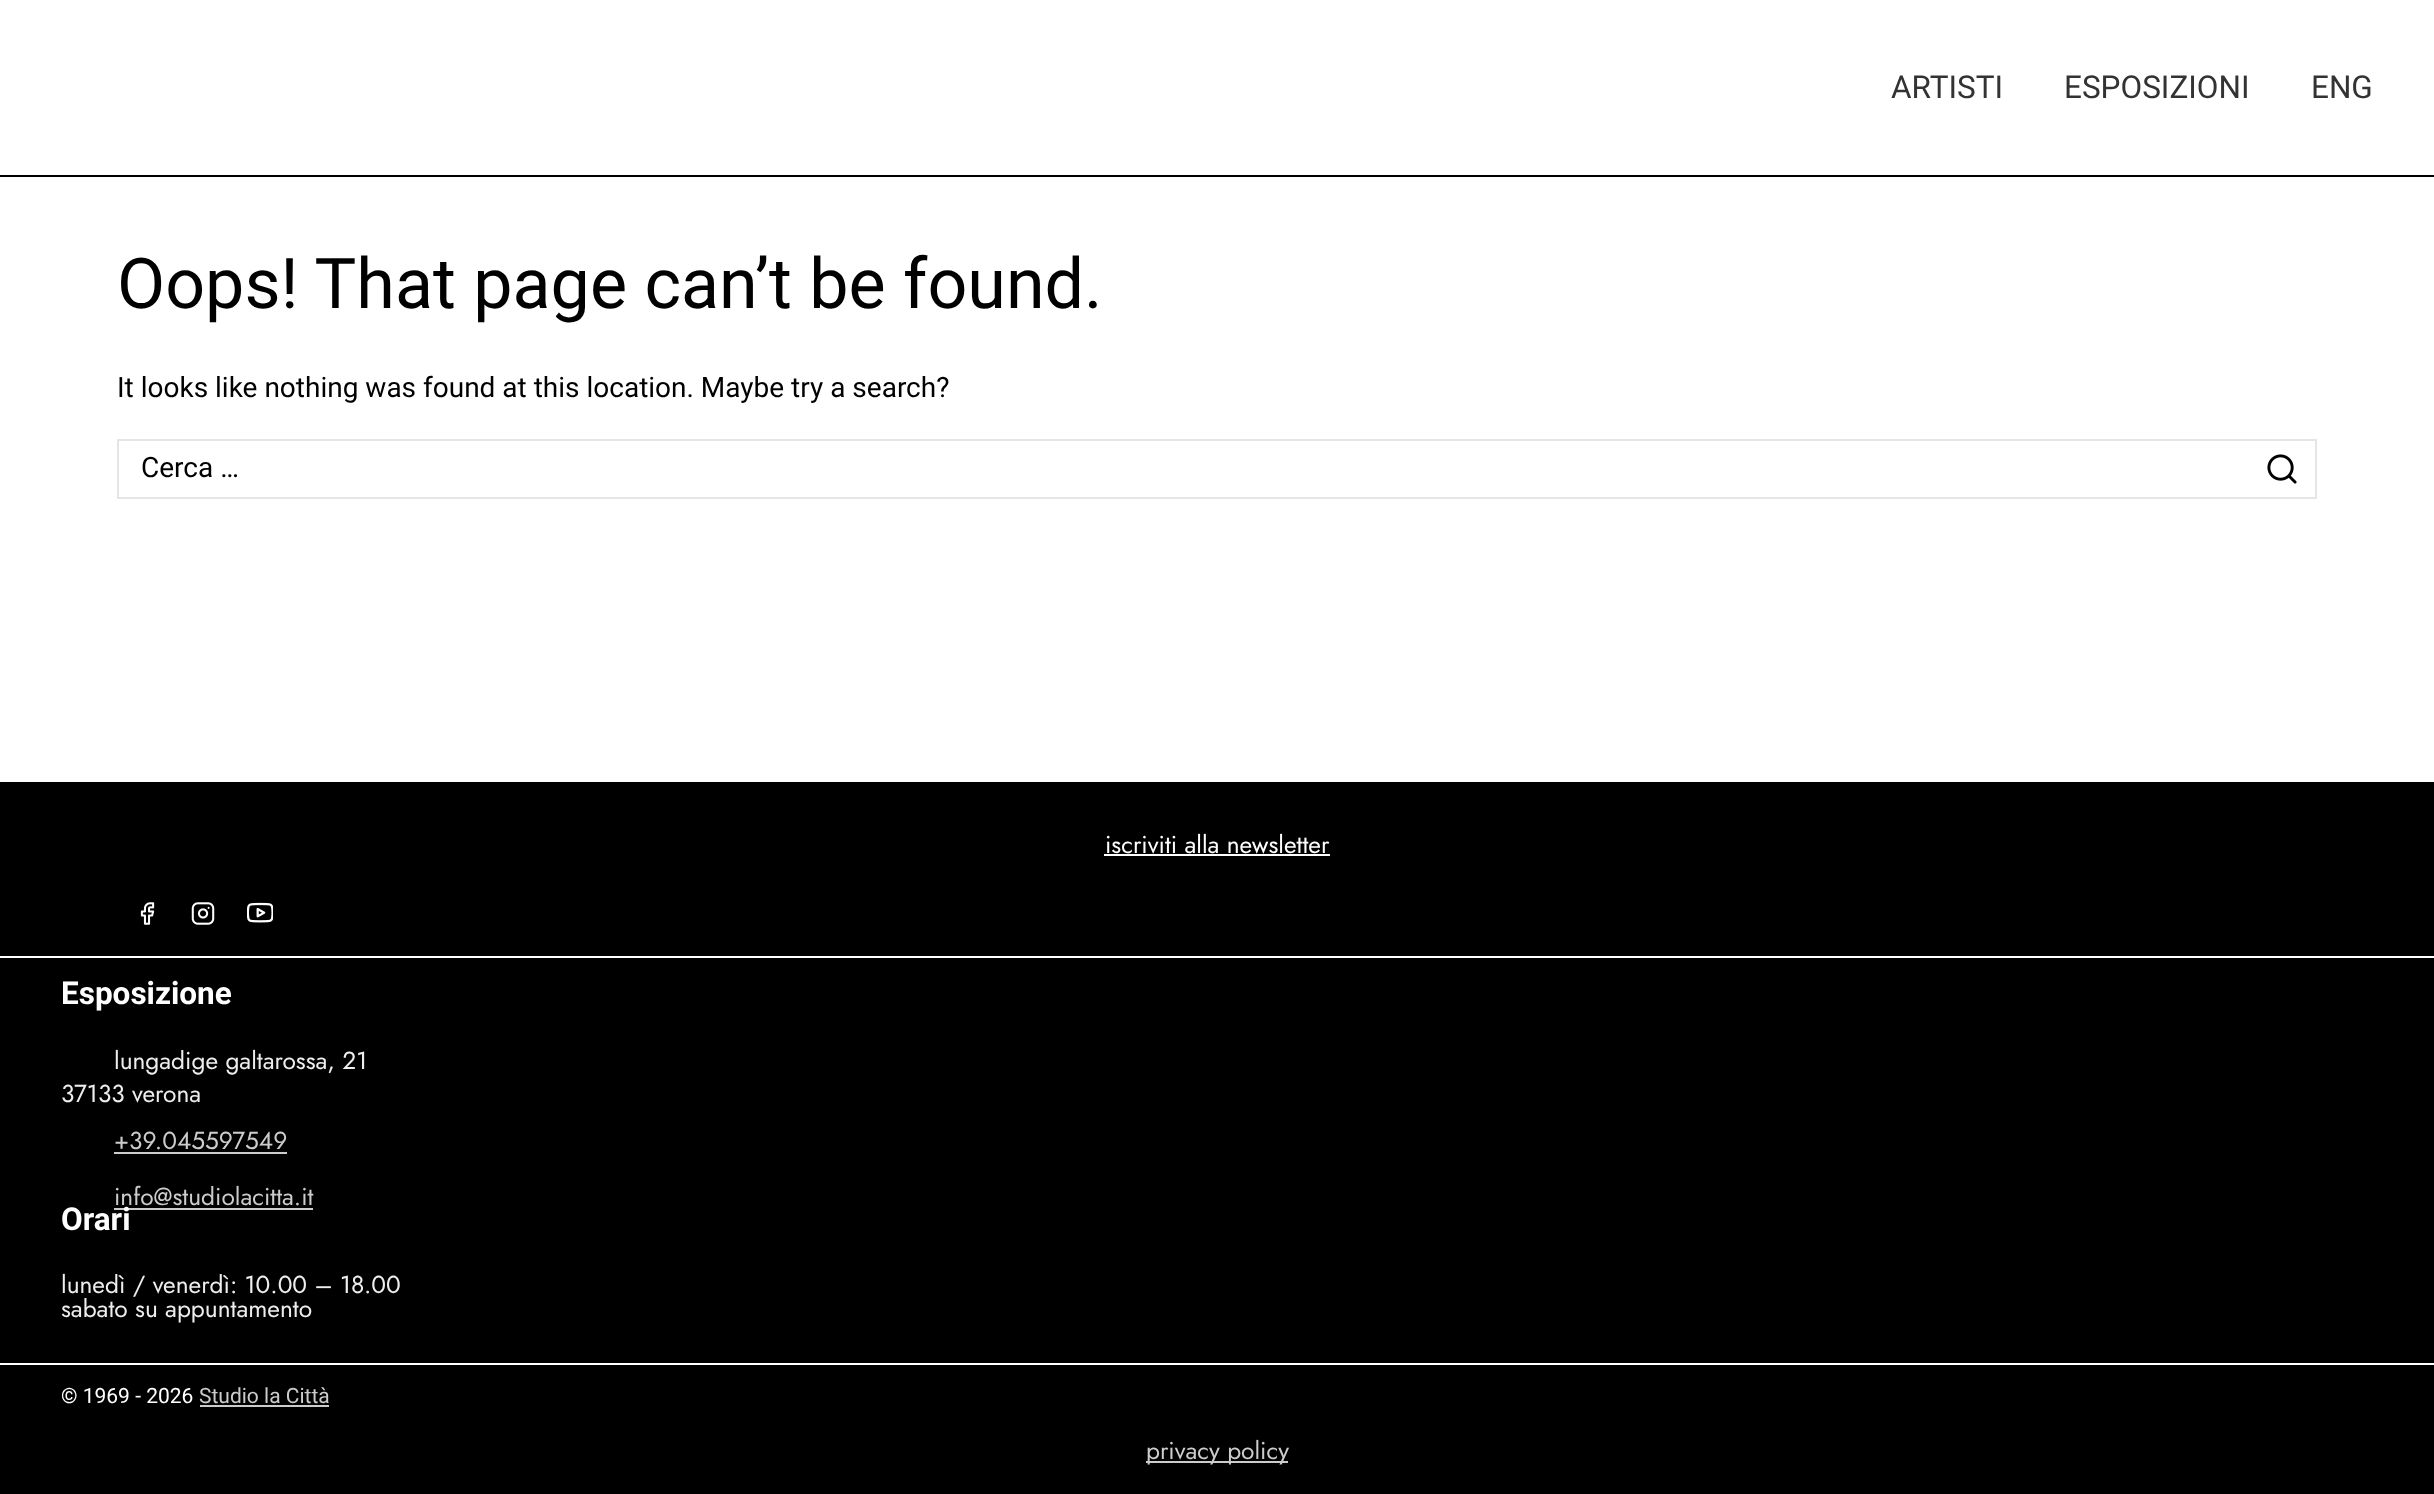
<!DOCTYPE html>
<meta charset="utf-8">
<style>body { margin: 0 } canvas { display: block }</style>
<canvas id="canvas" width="2434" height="1494"></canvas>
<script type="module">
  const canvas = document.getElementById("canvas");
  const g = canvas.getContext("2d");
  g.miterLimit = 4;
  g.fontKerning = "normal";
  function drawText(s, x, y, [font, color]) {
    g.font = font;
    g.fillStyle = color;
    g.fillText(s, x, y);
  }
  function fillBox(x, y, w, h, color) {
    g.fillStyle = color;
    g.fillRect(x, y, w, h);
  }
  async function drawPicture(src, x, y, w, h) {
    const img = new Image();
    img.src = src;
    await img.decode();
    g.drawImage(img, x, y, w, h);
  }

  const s1 = ["31.5px Roboto", "#333333"];
  const s2 = ["70px Roboto", "#000000"];
  const s3 = ["28px Roboto", "#000000"];
  const s4 = ["24.5px Jost", "#FFFFFF"];
  const s5 = ["bold 31.5px Roboto", "#FFFFFF"];
  const s6 = ["24.5px Jost", "#EEEEEE"];
  const s7 = ["24.5px Jost", "#CCCCCC"];
  const s8 = ["21px Roboto", "#FFFFFF"];
  const s9 = ["21px Roboto", "#CCCCCC"];

  fillBox(0, 0, 2434, 1494, "#FFFFFF");
  fillBox(0, 175, 2434, 2, "#000000");
  drawText("ARTISTI", 1891, 98, s1);
  drawText("ESPOSIZIONI", 2064, 98, s1);
  drawText("ENG", 2311, 98, s1);
  drawText("Oops! That page can’t be found.", 117, 308, s2);
  drawText("It looks like nothing was found at this location. Maybe try a search?", 117, 397, s3);
  g.strokeStyle = "#E5E5E5";
  g.lineWidth = 2;
  g.strokeRect(118, 440, 2198, 58);
  drawText("Cerca …", 141, 477, s3);
  await drawPicture("pic1.png", 2267, 454, 30, 30);
  fillBox(0, 782, 2434, 712, "#000000");
  drawText("iscriviti alla newsletter", 1105, 853, s4);
  fillBox(1104, 854, 226, 2, "#FFFFFF");
  await drawPicture("pic2.png", 140, 902, 15, 23);
  await drawPicture("pic3.png", 191, 902, 24, 23);
  await drawPicture("pic4.png", 247, 902, 26, 21);
  fillBox(0, 956, 2434, 2, "#FFFFFF");
  fillBox(0, 1363, 2434, 2, "#FFFFFF");
  drawText("Esposizione", 61, 1004, s5);
  drawText("lungadige galtarossa, 21", 114, 1069, s6);
  drawText("37133 verona", 61, 1102, s6);
  drawText("+39.045597549", 114, 1149, s7);
  fillBox(114, 1152, 173, 2, "#CCCCCC");
  drawText("info@studiolacitta.it", 114, 1205, s7);
  fillBox(114, 1208, 199, 2, "#CCCCCC");
  drawText("Orari", 61, 1230, s5);
  drawText("lunedì / venerdì: 10.00 – 18.00", 61, 1293, s6);
  drawText("sabato su appuntamento", 61, 1317, s6);
  drawText("© 1969 - 2026", 61, 1403, s8);
  drawText("Studio la Città", 199, 1403, s9);
  fillBox(200, 1405, 129, 2, "#CCCCCC");
  fillBox(1146, 1461, 142, 2, "#CCCCCC");
  drawText("privacy policy", 1146, 1459, s7);
</script>
